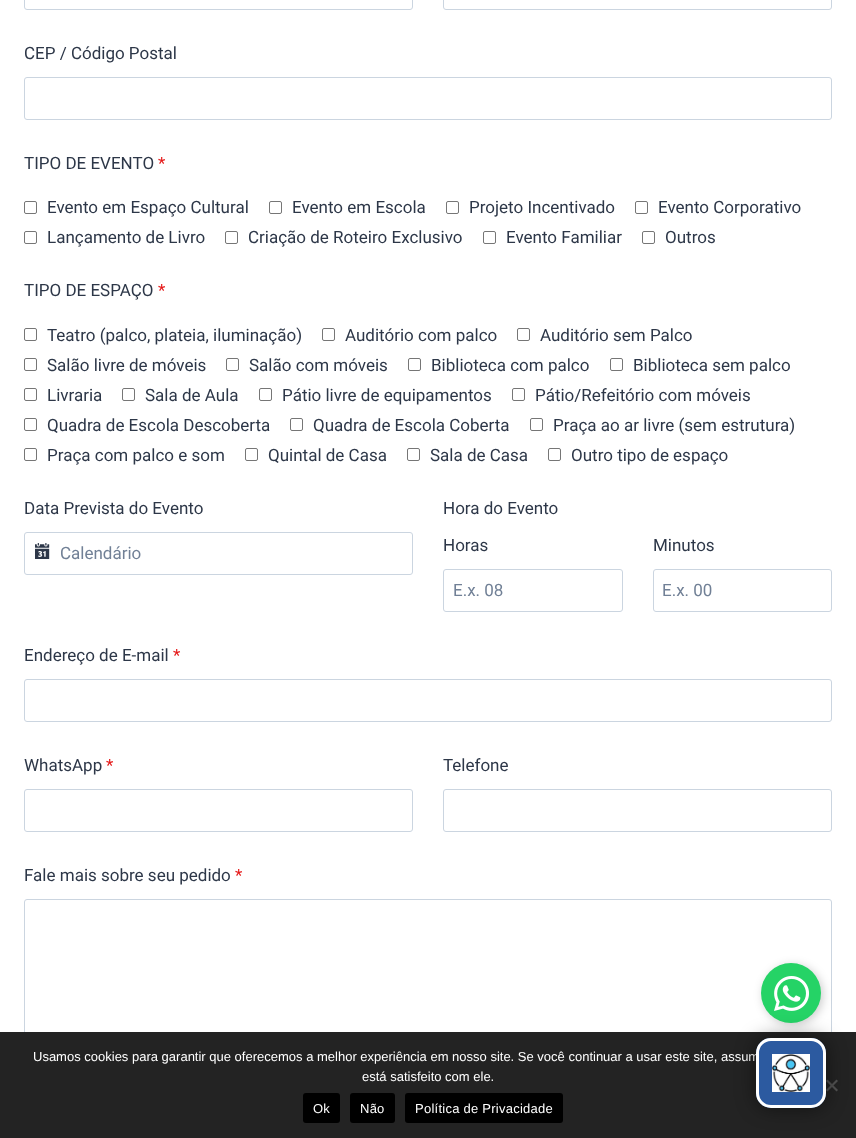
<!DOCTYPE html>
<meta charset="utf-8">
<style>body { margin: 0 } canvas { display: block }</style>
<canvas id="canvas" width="856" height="1138"></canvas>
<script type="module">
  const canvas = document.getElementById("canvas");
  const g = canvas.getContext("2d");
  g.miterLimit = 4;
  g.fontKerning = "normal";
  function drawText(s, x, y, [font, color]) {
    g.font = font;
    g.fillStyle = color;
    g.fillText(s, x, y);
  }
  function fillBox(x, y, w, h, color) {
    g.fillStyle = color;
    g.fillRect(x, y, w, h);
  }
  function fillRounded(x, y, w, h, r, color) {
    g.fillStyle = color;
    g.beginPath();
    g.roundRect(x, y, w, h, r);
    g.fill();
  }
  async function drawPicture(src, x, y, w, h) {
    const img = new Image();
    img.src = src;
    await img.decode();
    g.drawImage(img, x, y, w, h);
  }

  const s1 = ["17px Roboto", "#2D3748"];
  const s2 = ["17px Roboto", "#E51919"];
  const s3 = ["16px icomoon", "#2D3748"];
  const s4 = ["17px Roboto", "#718096"];
  const s5 = ["13px Liberation Sans", "#FFFFFF"];

  fillBox(0, 0, 856, 1138, "#FFFFFF");
  g.beginPath();
  g.roundRect(24.5, -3.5, 388, 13, 2.5);
  g.strokeStyle = "#CBD5E0";
  g.stroke();
  g.beginPath();
  g.roundRect(443.5, -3.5, 388, 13, 2.5);
  g.stroke();
  drawText("CEP / Código Postal", 24, 59, s1);
  g.beginPath();
  g.roundRect(24.5, 77.5, 807, 42, 2.5);
  g.stroke();
  drawText("TIPO DE EVENTO", 24, 169, s1);
  drawText("*", 158, 169, s2);
  g.beginPath();
  g.roundRect(24.5, 201.5, 12, 12, 1.5);
  g.strokeStyle = "#767676";
  g.stroke();
  drawText("Evento em Espaço Cultural", 47, 213, s1);
  g.beginPath();
  g.roundRect(269.5, 201.5, 12, 12, 1.5);
  g.stroke();
  drawText("Evento em Escola", 292, 213, s1);
  g.beginPath();
  g.roundRect(446.5, 201.5, 12, 12, 1.5);
  g.stroke();
  drawText("Projeto Incentivado", 469, 213, s1);
  g.beginPath();
  g.roundRect(635.5, 201.5, 12, 12, 1.5);
  g.stroke();
  drawText("Evento Corporativo", 658, 213, s1);
  g.beginPath();
  g.roundRect(24.5, 231.5, 12, 12, 1.5);
  g.stroke();
  drawText("Lançamento de Livro", 47, 243, s1);
  g.beginPath();
  g.roundRect(225.5, 231.5, 12, 12, 1.5);
  g.stroke();
  drawText("Criação de Roteiro Exclusivo", 248, 243, s1);
  g.beginPath();
  g.roundRect(483.5, 231.5, 12, 12, 1.5);
  g.stroke();
  drawText("Evento Familiar", 506, 243, s1);
  g.beginPath();
  g.roundRect(642.5, 231.5, 12, 12, 1.5);
  g.stroke();
  drawText("Outros", 665, 243, s1);
  drawText("TIPO DE ESPAÇO", 24, 296, s1);
  drawText("*", 158, 296, s2);
  g.beginPath();
  g.roundRect(24.5, 328.5, 12, 12, 1.5);
  g.stroke();
  drawText("Teatro (palco, plateia, iluminação)", 47, 341, s1);
  g.beginPath();
  g.roundRect(322.5, 328.5, 12, 12, 1.5);
  g.stroke();
  drawText("Auditório com palco", 345, 341, s1);
  g.beginPath();
  g.roundRect(517.5, 328.5, 12, 12, 1.5);
  g.stroke();
  drawText("Auditório sem Palco", 540, 341, s1);
  g.beginPath();
  g.roundRect(24.5, 358.5, 12, 12, 1.5);
  g.stroke();
  drawText("Salão livre de móveis", 47, 371, s1);
  g.beginPath();
  g.roundRect(226.5, 358.5, 12, 12, 1.5);
  g.stroke();
  drawText("Salão com móveis", 249, 371, s1);
  g.beginPath();
  g.roundRect(408.5, 358.5, 12, 12, 1.5);
  g.stroke();
  drawText("Biblioteca com palco", 431, 371, s1);
  g.beginPath();
  g.roundRect(610.5, 358.5, 12, 12, 1.5);
  g.stroke();
  drawText("Biblioteca sem palco", 633, 371, s1);
  g.beginPath();
  g.roundRect(24.5, 388.5, 12, 12, 1.5);
  g.stroke();
  drawText("Livraria", 47, 401, s1);
  g.beginPath();
  g.roundRect(122.5, 388.5, 12, 12, 1.5);
  g.stroke();
  drawText("Sala de Aula", 145, 401, s1);
  g.beginPath();
  g.roundRect(259.5, 388.5, 12, 12, 1.5);
  g.stroke();
  drawText("Pátio livre de equipamentos", 282, 401, s1);
  g.beginPath();
  g.roundRect(512.5, 388.5, 12, 12, 1.5);
  g.stroke();
  drawText("Pátio/Refeitório com móveis", 535, 401, s1);
  g.beginPath();
  g.roundRect(24.5, 418.5, 12, 12, 1.5);
  g.stroke();
  drawText("Quadra de Escola Descoberta", 47, 431, s1);
  g.beginPath();
  g.roundRect(290.5, 418.5, 12, 12, 1.5);
  g.stroke();
  drawText("Quadra de Escola Coberta", 313, 431, s1);
  g.beginPath();
  g.roundRect(530.5, 418.5, 12, 12, 1.5);
  g.stroke();
  drawText("Praça ao ar livre (sem estrutura)", 553, 431, s1);
  g.beginPath();
  g.roundRect(24.5, 448.5, 12, 12, 1.5);
  g.stroke();
  drawText("Praça com palco e som", 47, 461, s1);
  g.beginPath();
  g.roundRect(245.5, 448.5, 12, 12, 1.5);
  g.stroke();
  drawText("Quintal de Casa", 268, 461, s1);
  g.beginPath();
  g.roundRect(407.5, 448.5, 12, 12, 1.5);
  g.stroke();
  drawText("Sala de Casa", 430, 461, s1);
  g.beginPath();
  g.roundRect(548.5, 448.5, 12, 12, 1.5);
  g.stroke();
  drawText("Outro tipo de espaço", 571, 461, s1);
  drawText("Data Prevista do Evento", 24, 514, s1);
  g.beginPath();
  g.roundRect(24.5, 532.5, 388, 42, 2.5);
  g.strokeStyle = "#CBD5E0";
  g.stroke();
  drawText("📅", 34, 558, s3);
  drawText("Calendário", 60, 559, s4);
  drawText("Hora do Evento", 443, 514, s1);
  drawText("Horas", 443, 551, s1);
  g.beginPath();
  g.roundRect(443.5, 569.5, 179, 42, 2.5);
  g.stroke();
  drawText("E.x. 08", 453, 596, s4);
  drawText("Minutos", 653, 551, s1);
  g.beginPath();
  g.roundRect(653.5, 569.5, 178, 42, 2.5);
  g.stroke();
  drawText("E.x. 00", 662, 596, s4);
  drawText("Endereço de E-mail", 24, 661, s1);
  drawText("*", 173, 661, s2);
  g.beginPath();
  g.roundRect(24.5, 679.5, 807, 42, 2.5);
  g.stroke();
  drawText("WhatsApp", 24, 771, s1);
  drawText("*", 106, 771, s2);
  g.beginPath();
  g.roundRect(24.5, 789.5, 388, 42, 2.5);
  g.stroke();
  drawText("Telefone", 443, 771, s1);
  g.beginPath();
  g.roundRect(443.5, 789.5, 388, 42, 2.5);
  g.stroke();
  drawText("Fale mais sobre seu pedido", 24, 881, s1);
  drawText("*", 235, 881, s2);
  g.beginPath();
  g.roundRect(24.5, 899.5, 807, 178, 2.5);
  g.stroke();
  fillBox(0, 1032, 856, 106, "#232323");
  g.fillStyle = "rgba(0, 0, 0, 0.2)";
  g.filter = "blur(5px)";
  g.beginPath();
  g.roundRect(763, 965, 60, 60, 30);
  g.fill();
  g.filter = "none";
  g.fillStyle = "#25D366";
  g.beginPath();
  g.arc(791, 993, 30, 0, Math.PI * 2);
  g.fill();
  await drawPicture("pic1.png", 774, 976, 35, 35);
  drawText("Usamos cookies para garantir que oferecemos a melhor experiência em nosso site. Se você continuar a usar este site, assum", 33, 1061, s5);
  drawText("está satisfeito com ele.", 362, 1081, s5);
  g.fillStyle = "#525252";
  g.beginPath();
  g.moveTo(836.5, 1079.5);
  g.lineTo(838, 1081);
  g.lineTo(827.5, 1091.5);
  g.lineTo(826, 1090);
  g.closePath();
  g.fill();
  g.beginPath();
  g.moveTo(826, 1081);
  g.lineTo(827.5, 1079.5);
  g.lineTo(838, 1090);
  g.lineTo(836.5, 1091.5);
  g.closePath();
  g.fill();
  fillRounded(303, 1093, 37, 30, 3, "#000000");
  g.letterSpacing = "0.25px";
  drawText("Ok", 313, 1113, s5);
  fillRounded(350, 1093, 45, 30, 3, "#000000");
  drawText("Não", 360, 1113, s5);
  fillRounded(405, 1093, 158, 30, 3, "#000000");
  drawText("Política de Privacidade", 415, 1113, s5);
  g.fillStyle = "rgba(0, 0, 0, 0.5)";
  g.filter = "blur(10px)";
  g.beginPath();
  g.roundRect(756, 1038, 70, 70, 15);
  g.fill();
  g.filter = "none";
  fillRounded(756, 1038, 70, 70, 15, "#2C5AA0");
  await drawPicture("pic2.png", 772, 1054, 38, 38);
  g.beginPath();
  g.roundRect(757.5, 1039.5, 67, 67, 13.5);
  g.strokeStyle = "#FFFFFF";
  g.lineWidth = 3;
  g.stroke();
</script>
